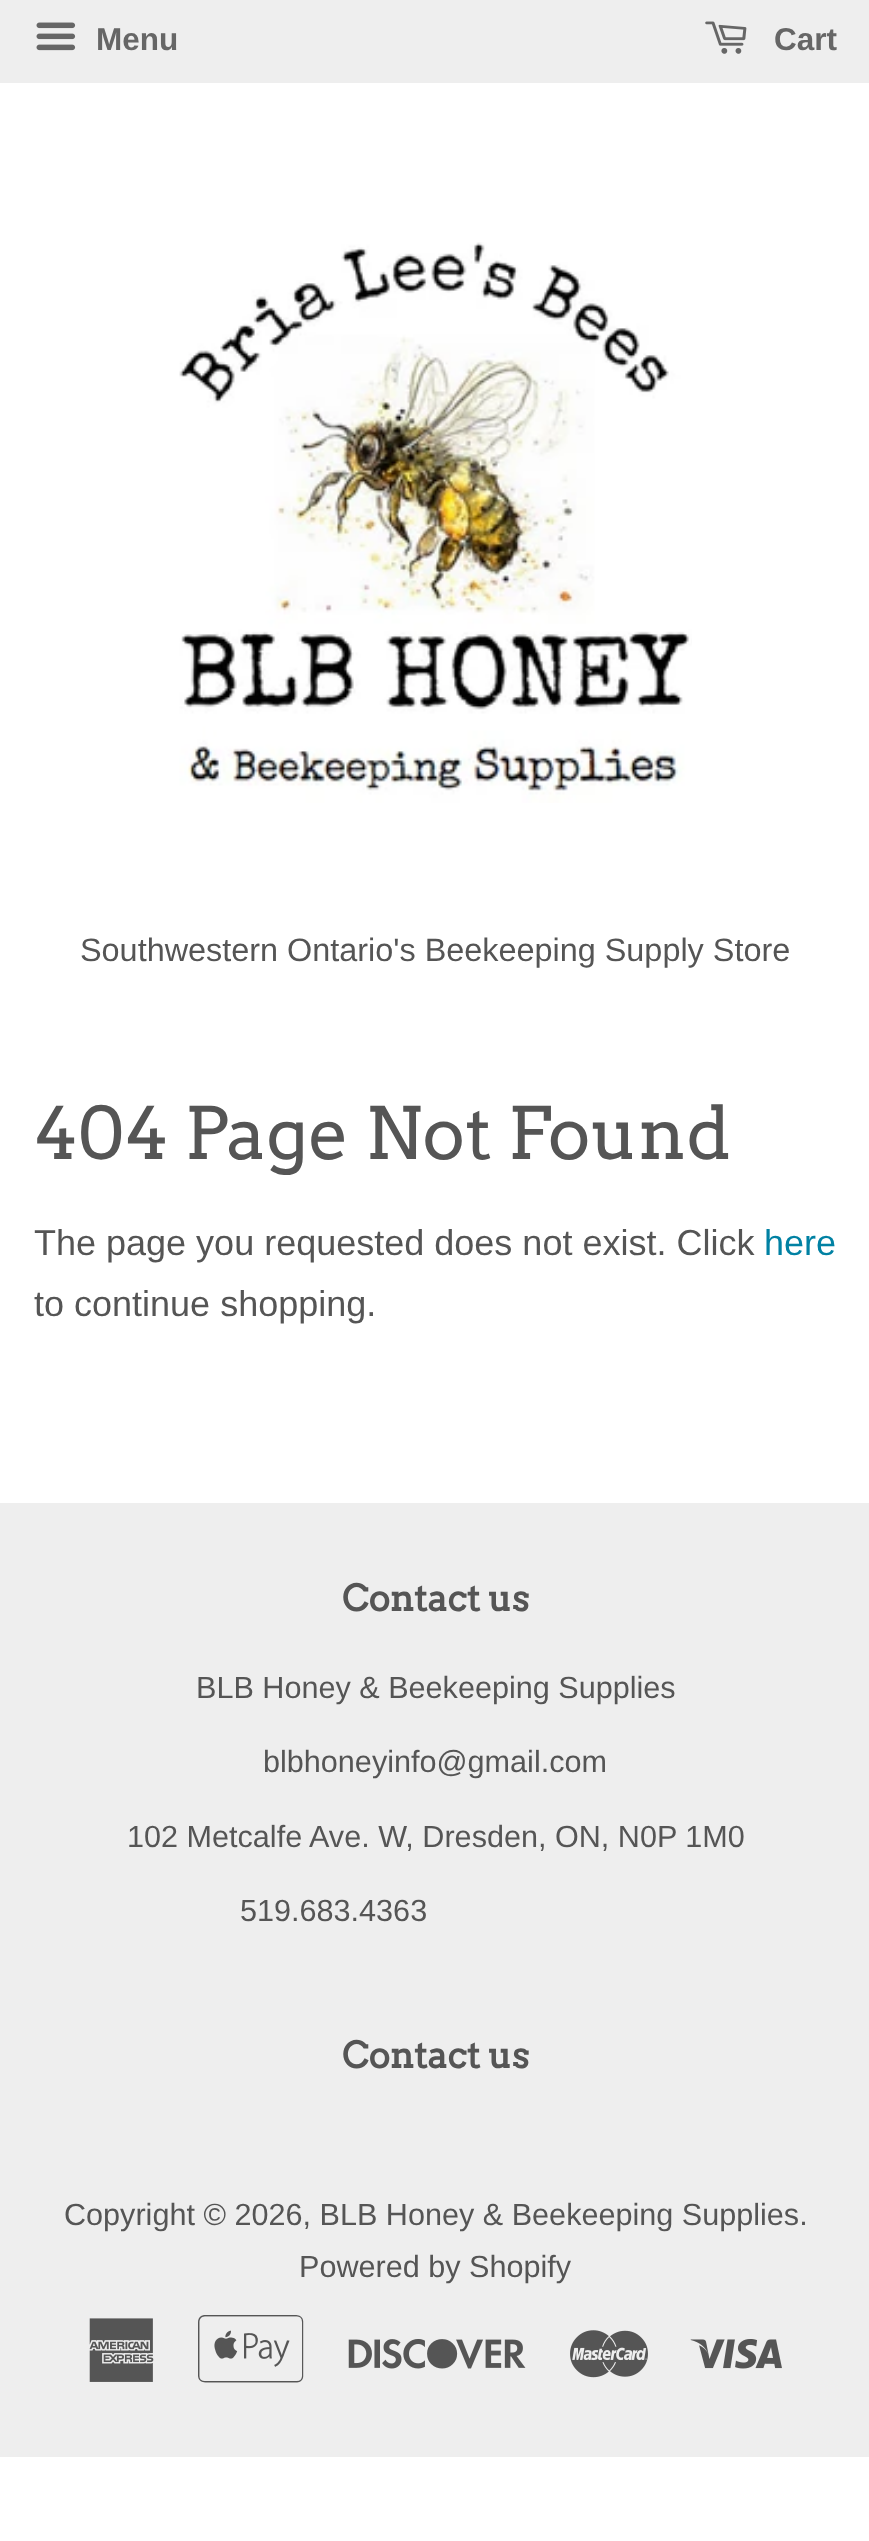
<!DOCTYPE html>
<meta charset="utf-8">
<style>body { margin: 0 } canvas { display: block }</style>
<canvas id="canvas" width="869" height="2541"></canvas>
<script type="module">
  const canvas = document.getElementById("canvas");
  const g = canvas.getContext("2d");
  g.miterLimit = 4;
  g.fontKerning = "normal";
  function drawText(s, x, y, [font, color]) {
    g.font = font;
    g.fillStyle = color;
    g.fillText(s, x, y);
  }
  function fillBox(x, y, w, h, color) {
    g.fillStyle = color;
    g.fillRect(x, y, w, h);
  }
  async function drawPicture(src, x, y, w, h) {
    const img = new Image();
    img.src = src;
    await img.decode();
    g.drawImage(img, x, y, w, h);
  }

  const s1 = ["bold 31.5px Liberation Sans", "#666666"];
  const s2 = ["32.4px Liberation Sans", "#555555"];
  const s3 = ["72px Arvo", "#555555"];
  const s4 = ["36px Liberation Sans", "#555555"];
  const s5 = ["36px Liberation Sans", "#0081A3"];
  const s6 = ["bold 36px Arvo", "#555555"];
  const s7 = ["30.6px Liberation Sans", "#555555"];

  fillBox(0, 0, 869, 2541, "#FFFFFF");
  fillBox(0, 0, 869, 83, "#EEEEEE");
  await drawPicture("pic1.png", 36, 22, 40, 29);
  drawText("Menu", 96, 50, s1);
  await drawPicture("pic2.png", 705, 21, 42, 33);
  drawText("Cart", 774, 50, s1);
  await drawPicture("pic3.png", 179, 242, 513, 561);
  drawText("Southwestern Ontario's Beekeeping Supply Store", 80, 961, s2);
  drawText("404 Page Not Found", 34, 1159, s3);
  drawText("The page you requested does not exist. Click", 34, 1255, s4);
  drawText("here", 764, 1255, s5);
  drawText("to continue shopping.", 34, 1316, s4);
  fillBox(0, 1503, 869, 954, "#EEEEEE");
  drawText("Contact us", 342, 1611, s6);
  drawText("BLB Honey & Beekeeping Supplies", 196, 1698, s7);
  drawText("blbhoneyinfo@gmail.com", 263, 1772, s7);
  drawText("102 Metcalfe Ave. W, Dresden, ON, N0P 1M0", 127, 1847, s7);
  drawText("519.683.4363", 240, 1921, s7);
  drawText("Contact us", 342, 2068, s6);
  drawText("Copyright © 2026, BLB Honey & Beekeeping Supplies.", 64, 2225, s7);
  drawText("Powered by Shopify", 299, 2277, s7);
  await drawPicture("pic4.png", 89, 2318, 65, 64);
  await drawPicture("pic5.png", 198, 2315, 106, 68);
  await drawPicture("pic6.png", 348, 2339, 178, 30);
  await drawPicture("pic7.png", 570, 2330, 78, 48);
  await drawPicture("pic8.png", 690, 2339, 92, 30);
</script>
